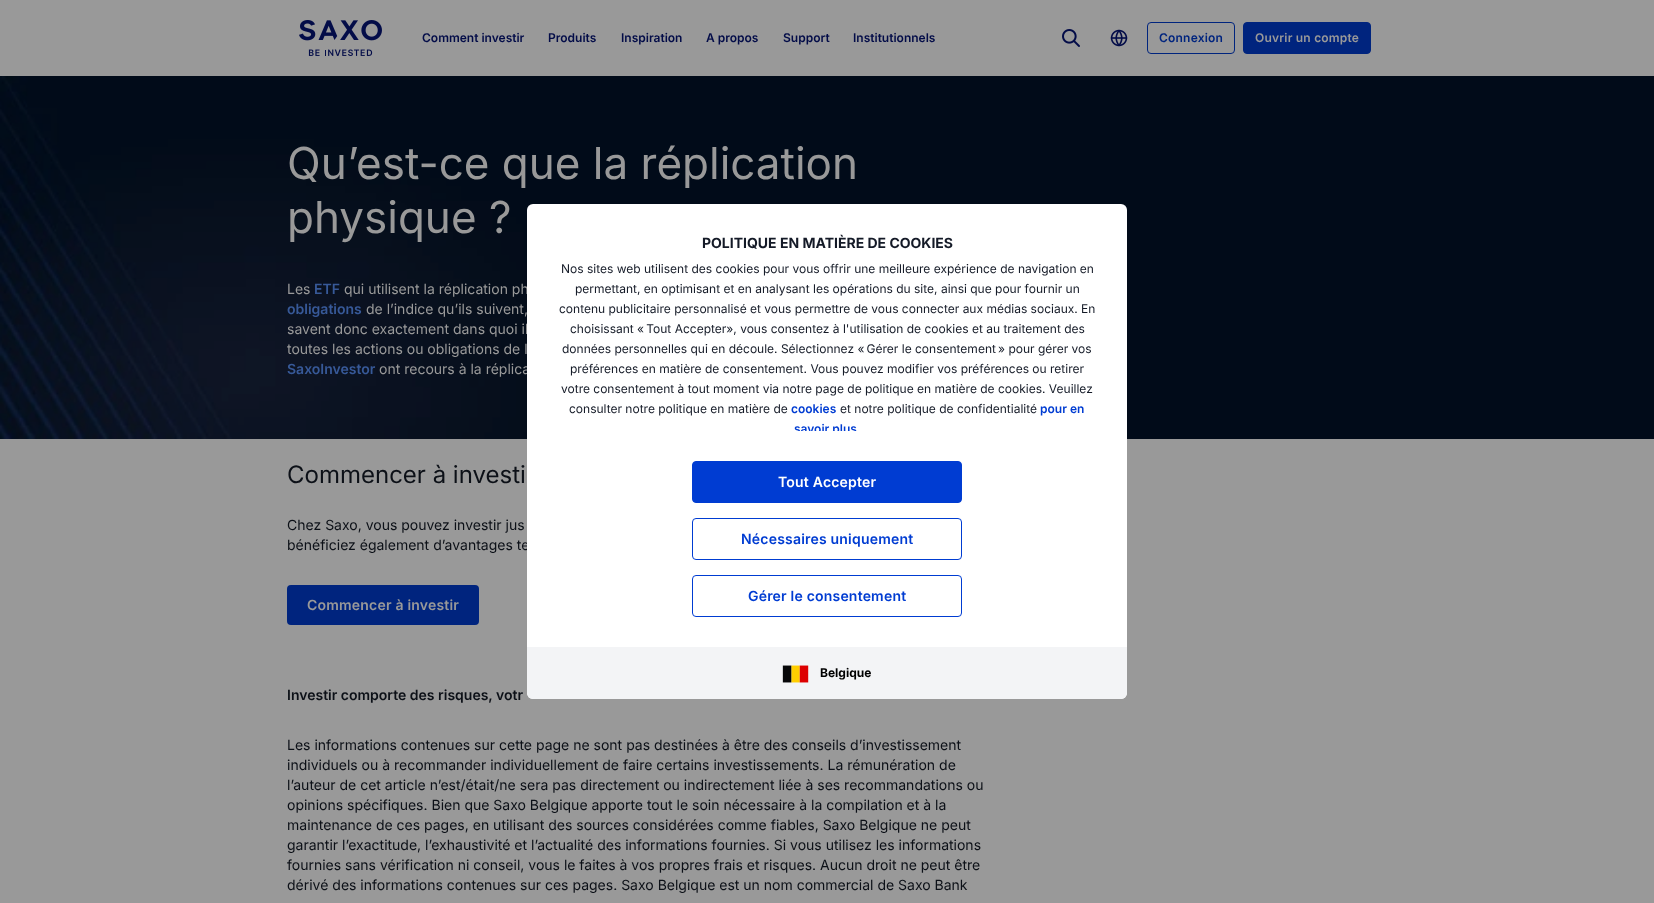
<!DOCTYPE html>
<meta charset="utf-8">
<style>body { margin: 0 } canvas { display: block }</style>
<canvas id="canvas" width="1654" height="903"></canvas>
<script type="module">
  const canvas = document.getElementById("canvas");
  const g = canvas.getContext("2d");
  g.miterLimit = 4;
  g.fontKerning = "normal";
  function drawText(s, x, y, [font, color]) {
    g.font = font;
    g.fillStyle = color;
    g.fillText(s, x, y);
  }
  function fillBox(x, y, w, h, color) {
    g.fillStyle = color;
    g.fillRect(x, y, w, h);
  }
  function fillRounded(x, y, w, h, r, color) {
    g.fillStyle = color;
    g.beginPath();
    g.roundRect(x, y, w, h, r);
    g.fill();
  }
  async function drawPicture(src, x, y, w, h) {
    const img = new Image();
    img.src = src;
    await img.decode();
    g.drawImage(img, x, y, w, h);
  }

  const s1 = ["600 12px Inter", "#030C48"];
  const s2 = ["600 12px Inter", "#00247E"];
  const s3 = ["600 12px Inter", "#999999"];
  const s4 = ["14px Inter", "#999999"];
  const s5 = ["14px Inter", "#0C1017"];
  const s6 = ["bold 14px Inter", "#141A27"];
  const s7 = ["12px Inter", "#141A27"];
  const s8 = ["600 12px Inter", "#003CD2"];
  const s9 = ["600 14px Inter", "#FFFFFF"];
  const s10 = ["600 14px Inter", "#003CD2"];
  const s11 = ["bold 12px Inter", "#000000"];
  const s12 = ["44px Inter", "#999999"];
  const s13 = ["600 14px Inter", "#375998"];
  const s14 = ["24px Inter", "#0C1017"];
  const s15 = ["600 14px Inter", "#999999"];
  const s16 = ["600 14px Inter", "#0C1017"];

  fillBox(0, 0, 1654, 903, "#999999");
  await drawPicture("pic1.png", 299, 20, 83, 36);
  drawText("Comment investir", 422, 42, s1);
  drawText("Produits", 548, 42, s1);
  drawText("Inspiration", 621, 42, s1);
  drawText("A propos", 706, 42, s1);
  drawText("Support", 783, 42, s1);
  drawText("Institutionnels", 853, 42, s1);
  await drawPicture("pic2.png", 1062, 29, 18, 18);
  await drawPicture("pic3.png", 1110, 29, 18, 18);
  g.beginPath();
  g.roundRect(1147.5, 22.5, 87, 31, 3.5);
  g.strokeStyle = "#00247E";
  g.stroke();
  g.letterSpacing = "0.2px";
  drawText("Connexion", 1159, 42, s2);
  g.beginPath();
  g.roundRect(1243.5, 22.5, 127, 31, 3.5);
  g.fill();
  g.stroke();
  drawText("Ouvrir un compte", 1255, 42, s3);
  await drawPicture("pic5.png", 0, 76, 1654, 363);
  g.letterSpacing = "0px";
  drawText("qui utilisent la réplication ph", 344, 294, s4);
  drawText("savent donc exactement dans quoi il", 287, 334, s4);
  drawText("ont recours à la réplica", 379, 374, s4);
  drawText("bénéficiez également d’avantages te", 287, 550, s5);
  fillRounded(527, 204, 600, 495, 6, "#FFFFFF");
  drawText("POLITIQUE EN MATIÈRE DE COOKIES", 702, 248, s6);
  drawText("Nos sites web utilisent des cookies pour vous offrir une meilleure expérience de navigation en", 561, 273, s7);
  drawText("permettant, en optimisant et en analysant les opérations du site, ainsi que pour fournir un", 575, 293, s7);
  drawText("contenu publicitaire personnalisé et vous permettre de vous connecter aux médias sociaux. En", 559, 313, s7);
  drawText("choisissant « Tout Accepter», vous consentez à l'utilisation de cookies et au traitement des", 570, 333, s7);
  drawText("données personnelles qui en découle. Sélectionnez « Gérer le consentement » pour gérer vos", 562, 353, s7);
  drawText("préférences en matière de consentement. Vous pouvez modifier vos préférences ou retirer", 570, 373, s7);
  drawText("votre consentement à tout moment via notre page de politique en matière de cookies. Veuillez", 561, 393, s7);
  drawText("consulter notre politique en matière de", 569, 413, s7);
  drawText("cookies", 791, 413, s8);
  drawText("et notre politique de confidentialité", 840, 413, s7);
  drawText("pour en", 1040, 413, s8);
  g.save();
  g.beginPath();
  g.rect(527, 204, 600, 227);
  g.clip();
  drawText("savoir plus", 794, 433, s8);
  g.restore();
  g.beginPath();
  g.roundRect(692.5, 461.5, 269, 41, 3.5);
  g.fill();
  g.strokeStyle = "#003CD2";
  g.stroke();
  g.letterSpacing = "0.2px";
  drawText("Tout Accepter", 778, 487, s9);
  g.beginPath();
  g.roundRect(692.5, 518.5, 269, 41, 3.5);
  g.stroke();
  drawText("Nécessaires uniquement", 741, 544, s10);
  g.beginPath();
  g.roundRect(692.5, 575.5, 269, 41, 3.5);
  g.stroke();
  drawText("Gérer le consentement", 748, 601, s10);
  g.fillStyle = "#F3F4F6";
  g.beginPath();
  g.roundRect(527, 647, 600, 52, [0, 0, 6, 6]);
  g.fill();
  await drawPicture("pic4.png", 782, 665, 27, 18);
  g.letterSpacing = "0px";
  drawText("Belgique", 820, 677, s11);
  drawText("Qu’est-ce que la réplication", 287, 179, s12);
  drawText("physique ?", 287, 233, s12);
  drawText("Les", 287, 294, s4);
  drawText("ETF", 314, 294, s13);
  drawText("obligations", 287, 314, s13);
  drawText("de l’indice qu’ils suivent,", 366, 314, s4);
  drawText("toutes les actions ou obligations de l", 287, 354, s4);
  drawText("SaxoInvestor", 287, 374, s13);
  drawText("Commencer à investi", 287, 483, s14);
  drawText("Chez Saxo, vous pouvez investir jus", 287, 530, s5);
  fillRounded(287, 585, 192, 40, 4, "#00247E");
  g.letterSpacing = "0.2px";
  drawText("Commencer à investir", 307, 610, s15);
  g.letterSpacing = "0px";
  drawText("Investir comporte des risques, votr", 287, 700, s16);
  drawText("Les informations contenues sur cette page ne sont pas destinées à être des conseils d’investissement", 287, 750, s5);
  drawText("individuels ou à recommander individuellement de faire certains investissements. La rémunération de", 287, 770, s5);
  drawText("l’auteur de cet article n’est/était/ne sera pas directement ou indirectement liée à ses recommandations ou", 287, 790, s5);
  drawText("opinions spécifiques. Bien que Saxo Belgique apporte tout le soin nécessaire à la compilation et à la", 287, 810, s5);
  drawText("maintenance de ces pages, en utilisant des sources considérées comme fiables, Saxo Belgique ne peut", 287, 830, s5);
  drawText("garantir l’exactitude, l’exhaustivité et l’actualité des informations fournies. Si vous utilisez les informations", 287, 850, s5);
  drawText("fournies sans vérification ni conseil, vous le faites à vos propres frais et risques. Aucun droit ne peut être", 287, 870, s5);
  drawText("dérivé des informations contenues sur ces pages. Saxo Belgique est un nom commercial de Saxo Bank", 287, 890, s5);
</script>
